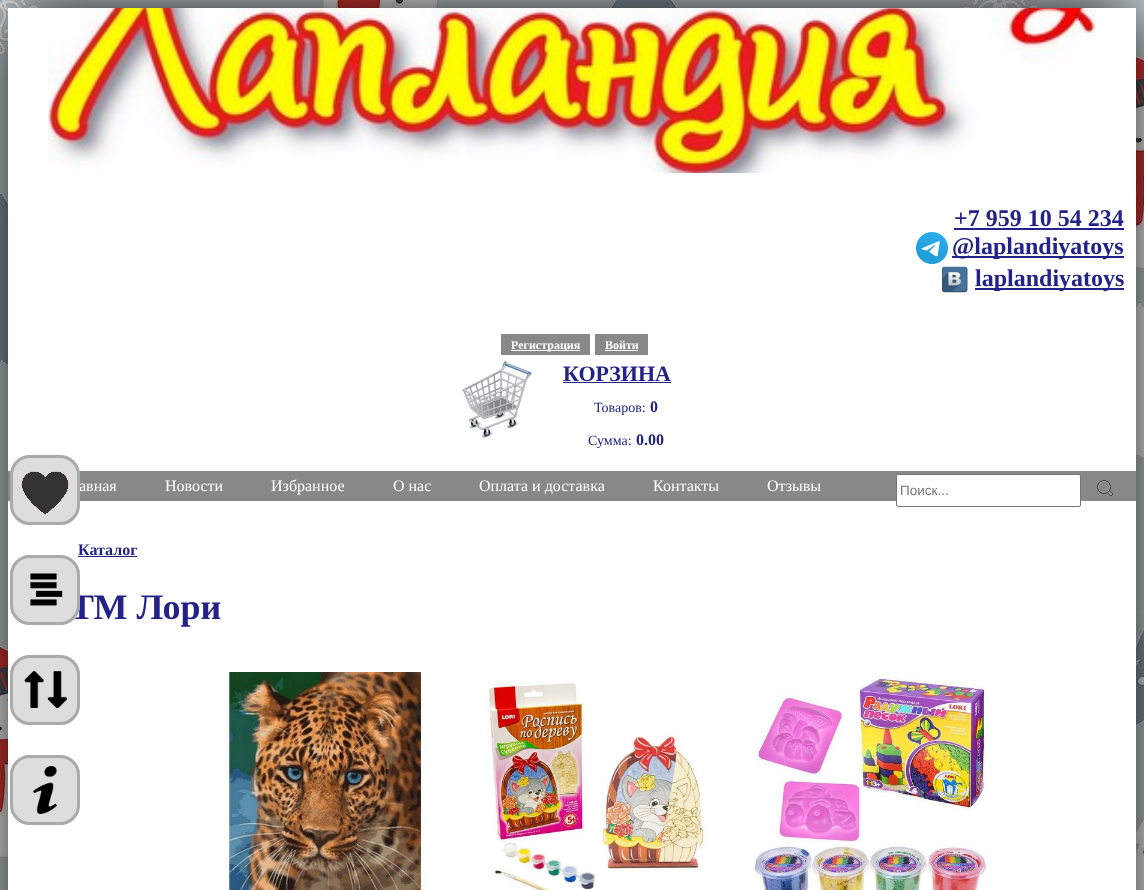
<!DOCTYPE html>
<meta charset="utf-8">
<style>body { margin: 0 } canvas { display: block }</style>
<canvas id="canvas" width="1144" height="890"></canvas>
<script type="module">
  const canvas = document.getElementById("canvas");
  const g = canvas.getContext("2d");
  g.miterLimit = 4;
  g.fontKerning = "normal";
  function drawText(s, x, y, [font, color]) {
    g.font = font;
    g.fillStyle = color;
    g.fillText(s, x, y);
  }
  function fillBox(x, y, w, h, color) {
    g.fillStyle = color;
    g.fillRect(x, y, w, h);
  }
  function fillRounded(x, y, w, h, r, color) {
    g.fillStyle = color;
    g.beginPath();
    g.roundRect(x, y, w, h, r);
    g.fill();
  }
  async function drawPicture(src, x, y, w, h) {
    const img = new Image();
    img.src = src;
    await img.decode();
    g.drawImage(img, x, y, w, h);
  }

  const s1 = ["16px Liberation Serif", "#FFFFFF"];
  const s2 = ["bold 16px Liberation Serif", "#222288"];
  const s3 = ["bold 36px Liberation Serif", "#222288"];
  const s4 = ["bold 24px Liberation Serif", "#222288"];
  const s5 = ["bold 12px Liberation Serif", "#FFFFFF"];
  const s6 = ["bold 22px Liberation Serif", "#222288"];
  const s7 = ["14px Liberation Serif", "#222288"];
  const s8 = ["13.5px Liberation Sans", "#757575"];

  fillBox(0, 0, 1144, 890, "#FFFFFF");
  await drawPicture("pic1.png", 0, 0, 1144, 890);
  g.fillStyle = "#000000";
  g.filter = "blur(35px)";
  g.beginPath();
  g.rect(8, 8, 1128, 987);
  g.fill();
  g.filter = "none";
  fillBox(8, 8, 1128, 882, "#FFFFFF");
  fillBox(8, 471, 1128, 30, "#888888");
  drawText("авная", 79, 491, s1);
  fillRounded(10, 455, 70, 70, 20, "#DDDDDD");
  await drawPicture("pic2.png", 21, 471, 48, 44);
  g.beginPath();
  g.roundRect(11.5, 456.5, 67, 67, 18.5);
  g.strokeStyle = "#AAAAAA";
  g.lineWidth = 3;
  g.stroke();
  drawText("Каталог", 78, 555, s2);
  fillBox(78, 556, 59, 1, "#222288");
  drawText("ТМ Лори", 70, 619, s3);
  fillRounded(10, 555, 70, 70, 20, "#DDDDDD");
  await drawPicture("pic3.png", 30, 573, 33, 33);
  g.beginPath();
  g.roundRect(11.5, 556.5, 67, 67, 18.5);
  g.stroke();
  fillRounded(10, 655, 70, 70, 20, "#DDDDDD");
  await drawPicture("pic4.png", 24, 671, 43, 37);
  g.beginPath();
  g.roundRect(11.5, 656.5, 67, 67, 18.5);
  g.stroke();
  fillRounded(10, 755, 70, 70, 20, "#DDDDDD");
  await drawPicture("pic5.png", 33, 766, 24, 48);
  g.beginPath();
  g.roundRect(11.5, 756.5, 67, 67, 18.5);
  g.stroke();
  await drawPicture("pic6.png", 48, 8, 1048, 165);
  drawText("+7 959 10 54 234", 954, 226, s4);
  fillBox(954, 228, 170, 2, "#222288");
  await drawPicture("pic7.png", 916, 232, 32, 32);
  fillBox(952, 256, 172, 2, "#222288");
  drawText("@laplandiyatoys", 952, 254, s4);
  await drawPicture("pic8.png", 942, 266, 26, 27);
  fillBox(975, 288, 149, 2, "#222288");
  drawText("laplandiyatoys", 975, 286, s4);
  fillBox(501, 334, 89, 21, "#888888");
  fillBox(511, 350, 69, 1, "#FFFFFF");
  drawText("Регистрация", 511, 349, s5);
  fillBox(595, 334, 53, 21, "#888888");
  drawText("Войти", 605, 349, s5);
  fillBox(605, 350, 33, 1, "#FFFFFF");
  await drawPicture("pic9.png", 462, 361, 70, 78);
  drawText("КОРЗИНА", 563, 381, s6);
  fillBox(563, 382, 108, 1, "#222288");
  drawText("Товаров:", 594, 412, s7);
  drawText("0", 650, 412, s2);
  drawText("Сумма:", 588, 445, s7);
  drawText("0.00", 636, 445, s2);
  drawText("Новости", 165, 491, s1);
  drawText("Избранное", 271, 491, s1);
  drawText("О нас", 393, 491, s1);
  drawText("Оплата и доставка", 479, 491, s1);
  drawText("Контакты", 653, 491, s1);
  drawText("Отзывы", 767, 491, s1);
  g.beginPath();
  g.roundRect(896.5, 474.5, 184, 32, 1.5);
  g.fill();
  g.strokeStyle = "#767676";
  g.lineWidth = 1;
  g.stroke();
  drawText("Поиск...", 900, 495, s8);
  await drawPicture("pic10.png", 1097, 480, 16, 16);
  await drawPicture("pic11.png", 224, 672, 202, 218);
  await drawPicture("pic12.png", 486, 681, 221, 209);
  await drawPicture("pic13.png", 753, 672, 236, 218);
</script>
